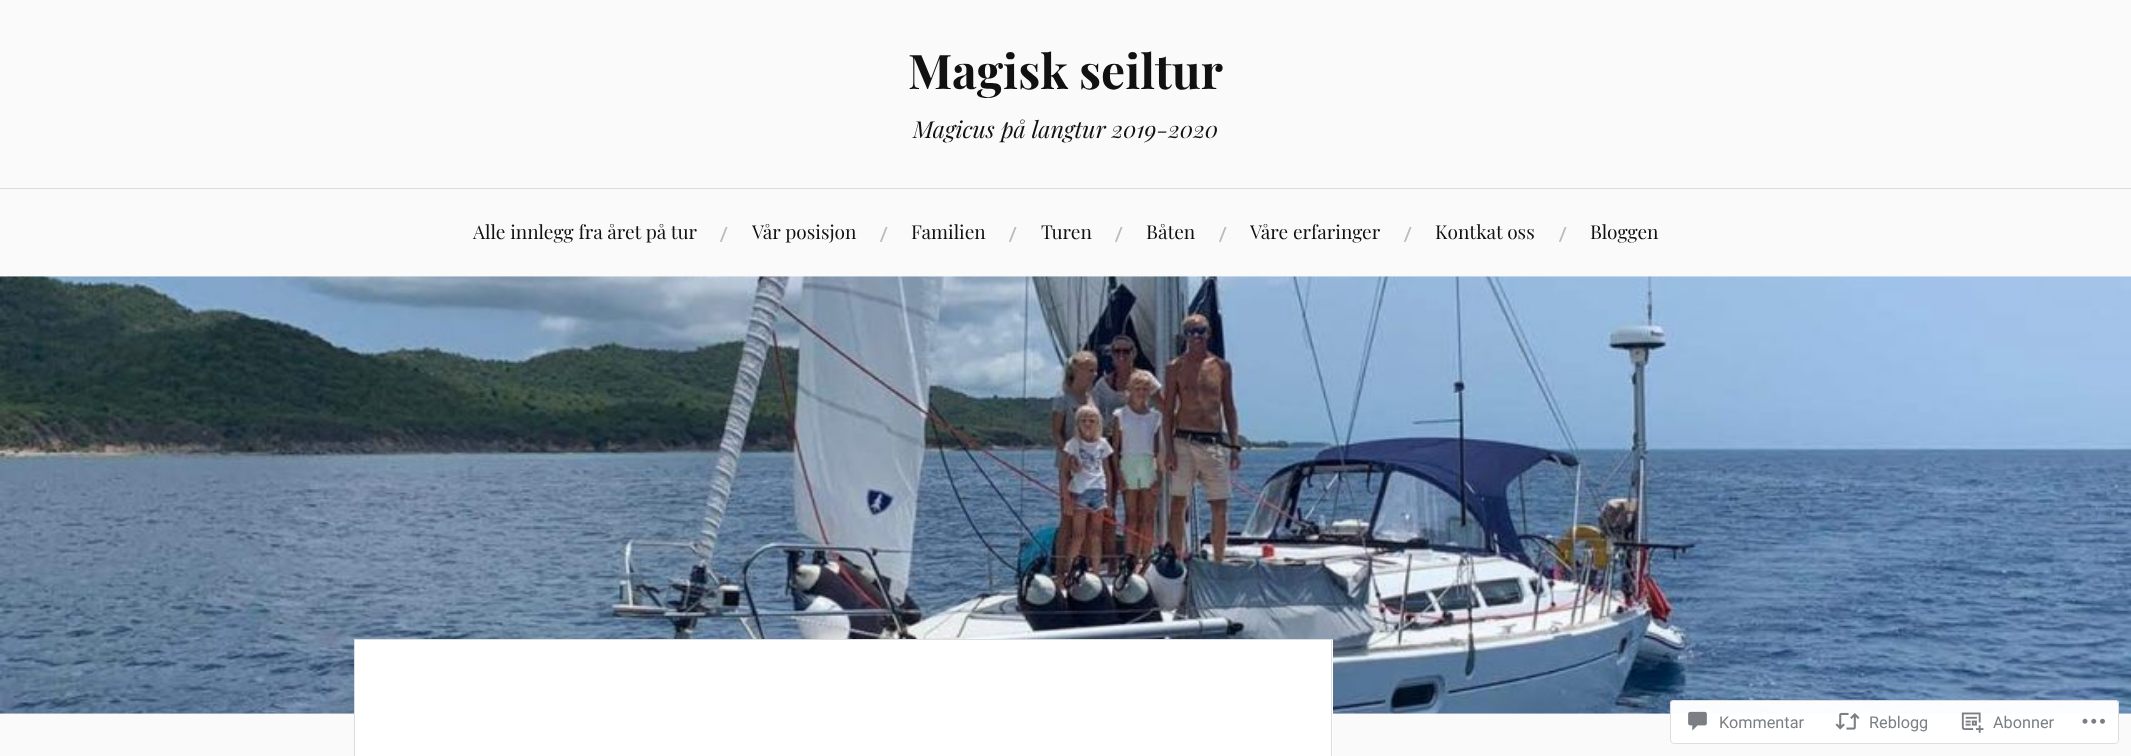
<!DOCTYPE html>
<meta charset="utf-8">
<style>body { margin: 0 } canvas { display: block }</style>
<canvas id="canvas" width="2131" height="756"></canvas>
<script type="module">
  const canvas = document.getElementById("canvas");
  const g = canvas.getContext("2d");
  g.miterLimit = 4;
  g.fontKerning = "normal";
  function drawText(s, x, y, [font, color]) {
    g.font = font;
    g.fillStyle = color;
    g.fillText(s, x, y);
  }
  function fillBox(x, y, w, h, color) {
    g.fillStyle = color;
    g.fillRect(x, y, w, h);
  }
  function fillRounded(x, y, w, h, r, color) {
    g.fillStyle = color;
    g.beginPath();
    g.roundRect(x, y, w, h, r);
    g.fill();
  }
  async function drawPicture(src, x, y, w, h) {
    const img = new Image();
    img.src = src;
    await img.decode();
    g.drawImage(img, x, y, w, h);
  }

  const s1 = ["bold 47.75px Playfair Display", "#111111"];
  const s2 = ["italic 23.4px Playfair Display", "#111111"];
  const s3 = ["19.1px Playfair Display", "#111111"];
  const s4 = ["bold 19px Lato", "#BBBBBB"];
  const s5 = ["16.25px Roboto", "#7B7F84"];

  fillBox(0, 0, 2131, 756, "#FAFAFA");
  drawText("Magisk seiltur", 908, 89, s1);
  drawText("Magicus på langtur 2019-2020", 913, 138, s2);
  fillBox(0, 188, 2131, 1, "#DDDDDD");
  drawText("Alle innlegg fra året på tur", 473, 239, s3);
  drawText("/", 720, 241, s4);
  drawText("Vår posisjon", 752, 239, s3);
  drawText("/", 880, 241, s4);
  drawText("Familien", 911, 239, s3);
  drawText("/", 1009, 241, s4);
  drawText("Turen", 1041, 239, s3);
  drawText("/", 1115, 241, s4);
  drawText("Båten", 1146, 239, s3);
  drawText("/", 1219, 241, s4);
  drawText("Våre erfaringer", 1250, 239, s3);
  drawText("/", 1404, 241, s4);
  drawText("Kontkat oss", 1435, 239, s3);
  drawText("/", 1559, 241, s4);
  drawText("Bloggen", 1590, 239, s3);
  await drawPicture("pic1.png", 0, 276, 2131, 438);
  fillBox(355, 640, 978, 116, "#FFFFFF");
  fillBox(354, 639, 979, 1, "#DDDDDD");
  fillBox(1331, 639, 1, 117, "#DDDDDD");
  fillBox(354, 639, 1, 117, "#DDDDDD");
  fillRounded(1670, 700, 449, 44, 4, "rgba(255, 255, 255, 0.98)");
  g.beginPath();
  g.roundRect(1670.5, 700.5, 448, 43, 3.5);
  g.strokeStyle = "rgba(220, 220, 222, 0.98)";
  g.stroke();
  await drawPicture("pic2.png", 1688, 711, 19, 20);
  drawText("Kommentar", 1719, 728, s5);
  await drawPicture("pic3.png", 1835, 712, 25, 18);
  drawText("Reblogg", 1869, 728, s5);
  await drawPicture("pic4.png", 1961, 712, 23, 21);
  drawText("Abonner", 1993, 728, s5);
  await drawPicture("pic5.png", 2082, 718, 23, 6);
</script>
